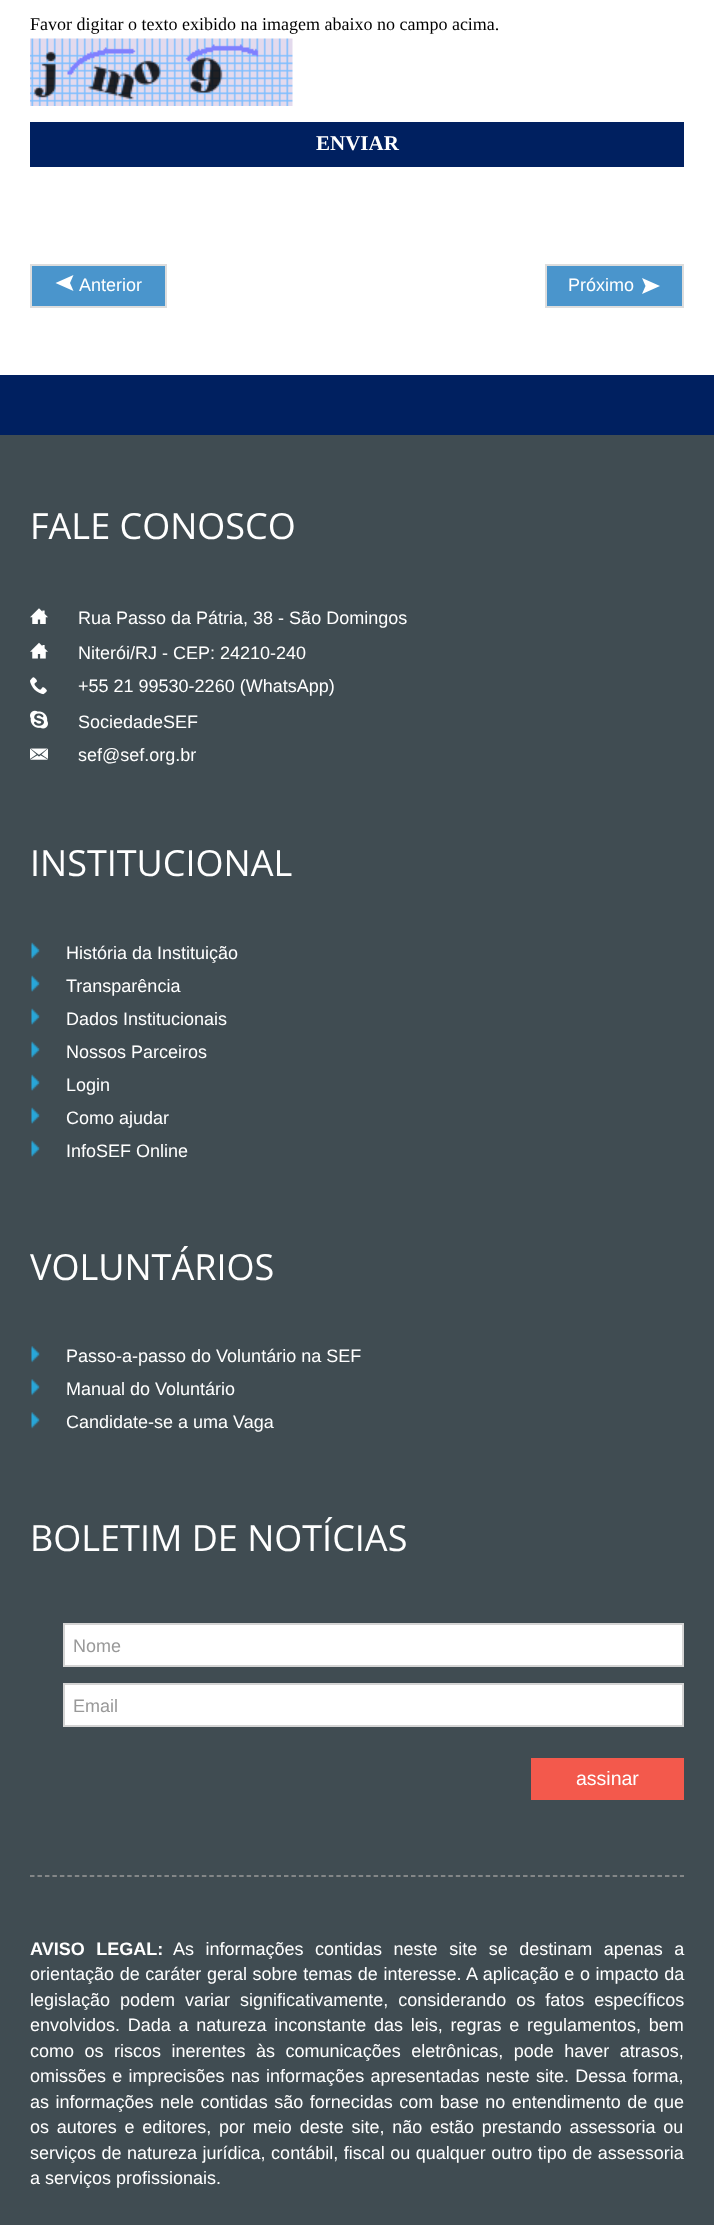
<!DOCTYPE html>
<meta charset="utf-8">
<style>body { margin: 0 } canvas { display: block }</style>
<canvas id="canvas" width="714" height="2225"></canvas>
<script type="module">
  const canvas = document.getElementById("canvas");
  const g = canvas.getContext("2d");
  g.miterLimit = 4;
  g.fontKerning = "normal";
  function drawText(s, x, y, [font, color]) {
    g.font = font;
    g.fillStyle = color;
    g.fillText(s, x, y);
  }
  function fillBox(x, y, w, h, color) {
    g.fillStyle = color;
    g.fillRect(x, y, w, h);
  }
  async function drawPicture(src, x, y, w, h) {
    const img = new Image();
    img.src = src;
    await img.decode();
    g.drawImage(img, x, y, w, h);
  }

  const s1 = ["18px Liberation Serif", "#000000"];
  const s2 = ["bold 21px Liberation Serif", "#FFFFFF"];
  const s3 = ["18px Liberation Sans", "#FFFFFF"];
  const s4 = ["36px Open Sans", "#FFFFFF"];
  const s5 = ["18px Liberation Sans", "#999999"];
  const s6 = ["19.5px Liberation Sans", "#FFFFFF"];
  const s7 = ["bold 18px Liberation Sans", "#FFFFFF"];

  fillBox(0, 0, 714, 2225, "#002060");
  fillBox(0, 0, 714, 375, "#FFFFFF");
  drawText("Favor digitar o texto exibido na imagem abaixo no campo acima.", 30, 30, s1);
  await drawPicture("pic1.png", 30, 38, 263, 68);
  fillBox(30, 122, 654, 45, "#002060");
  drawText("ENVIAR", 316, 150, s2);
  g.fillStyle = "#4A95CC";
  g.beginPath();
  g.rect(31, 265, 135, 42);
  g.fill();
  g.strokeStyle = "#DDDDDD";
  g.lineWidth = 2;
  g.stroke();
  g.fillStyle = "#FFFFFF";
  g.beginPath();
  g.moveTo(55.5, 283);
  g.lineTo(73.5, 275);
  g.lineTo(70, 283);
  g.lineTo(73.5, 291);
  g.closePath();
  g.fill();
  drawText("Anterior", 79, 291, s3);
  g.fillStyle = "#4A95CC";
  g.beginPath();
  g.rect(546, 265, 137, 42);
  g.fill();
  g.stroke();
  drawText("Próximo", 568, 291, s3);
  g.beginPath();
  g.moveTo(660, 286);
  g.lineTo(642, 294);
  g.lineTo(645.5, 286);
  g.lineTo(642, 278);
  g.closePath();
  g.fill();
  fillBox(0, 435, 714, 1790, "#404C52");
  drawText("FALE CONOSCO", 30, 539, s4);
  await drawPicture("pic2.png", 30, 608, 18, 16);
  drawText("Rua Passo da Pátria, 38 - São Domingos", 78, 624, s3);
  await drawPicture("pic3.png", 30, 642, 18, 17);
  drawText("Niterói/RJ - CEP: 24210-240", 78, 659, s3);
  await drawPicture("pic4.png", 30, 677, 17, 18);
  drawText("+55 21 99530-2260 (WhatsApp)", 78, 692, s3);
  await drawPicture("pic5.png", 30, 710, 18, 19);
  drawText("SociedadeSEF", 78, 728, s3);
  await drawPicture("pic6.png", 30, 748, 18, 12);
  drawText("sef@sef.org.br", 78, 761, s3);
  drawText("INSTITUCIONAL", 30, 876, s4);
  await drawPicture("pic7.png", 31, 942, 9, 17);
  drawText("História da Instituição", 66, 959, s3);
  await drawPicture("pic7.png", 31, 975, 9, 17);
  drawText("Transparência", 66, 992, s3);
  await drawPicture("pic7.png", 31, 1008, 9, 17);
  drawText("Dados Institucionais", 66, 1025, s3);
  await drawPicture("pic7.png", 31, 1041, 9, 17);
  drawText("Nossos Parceiros", 66, 1058, s3);
  await drawPicture("pic7.png", 31, 1074, 9, 17);
  drawText("Login", 66, 1091, s3);
  await drawPicture("pic7.png", 31, 1107, 9, 17);
  drawText("Como ajudar", 66, 1124, s3);
  await drawPicture("pic7.png", 31, 1140, 9, 17);
  drawText("InfoSEF Online", 66, 1157, s3);
  drawText("VOLUNTÁRIOS", 30, 1280, s4);
  await drawPicture("pic8.png", 31, 1346, 9, 17);
  drawText("Passo-a-passo do Voluntário na SEF", 66, 1362, s3);
  await drawPicture("pic8.png", 31, 1379, 9, 17);
  drawText("Manual do Voluntário", 66, 1395, s3);
  await drawPicture("pic8.png", 31, 1412, 9, 17);
  drawText("Candidate-se a uma Vaga", 66, 1428, s3);
  drawText("BOLETIM DE NOTÍCIAS", 30, 1551, s4);
  g.beginPath();
  g.rect(64, 1624, 619, 42);
  g.fill();
  g.strokeStyle = "#D4D4D4";
  g.stroke();
  drawText("Nome", 73, 1652, s5);
  g.fillStyle = "#FFFFFF";
  g.beginPath();
  g.rect(64, 1684, 619, 42);
  g.fill();
  g.stroke();
  drawText("Email", 73, 1712, s5);
  fillBox(531, 1758, 153, 42, "#F3594C");
  drawText("assinar", 576, 1785, s6);
  g.beginPath();
  g.moveTo(30, 1876);
  g.lineTo(684, 1876);
  g.strokeStyle = "#999999";
  g.lineWidth = 1.5;
  g.setLineDash([4.5, 2.97]);
  g.stroke();
  g.wordSpacing = "6.5px";
  drawText("AVISO LEGAL:", 30, 1955, s7);
  drawText("As informações contidas neste site se destinam apenas a", 173, 1955, s3);
  g.wordSpacing = "0.6px";
  drawText("orientação de caráter geral sobre temas de interesse. A aplicação e o impacto da", 30, 1980, s3);
  g.wordSpacing = "5px";
  drawText("legislação podem variar significativamente, considerando os fatos específicos", 30, 2006, s3);
  g.wordSpacing = "2.75px";
  drawText("envolvidos. Dada a natureza inconstante das leis, regras e regulamentos, bem", 30, 2031, s3);
  g.wordSpacing = "5.5px";
  drawText("como os riscos inerentes às comunicações eletrônicas, pode haver atrasos,", 30, 2057, s3);
  g.wordSpacing = "1.25px";
  drawText("omissões e imprecisões nas informações apresentadas neste site. Dessa forma,", 30, 2082, s3);
  g.wordSpacing = "1.5px";
  drawText("as informações nele contidas são fornecidas com base no entendimento de que", 30, 2108, s3);
  g.wordSpacing = "2.75px";
  drawText("os autores e editores, por meio deste site, não estão prestando assessoria ou", 30, 2133, s3);
  g.wordSpacing = "0.5px";
  drawText("serviços de natureza jurídica, contábil, fiscal ou qualquer outro tipo de assessoria", 30, 2159, s3);
  g.wordSpacing = "0px";
  drawText("a serviços profissionais.", 30, 2184, s3);
</script>
